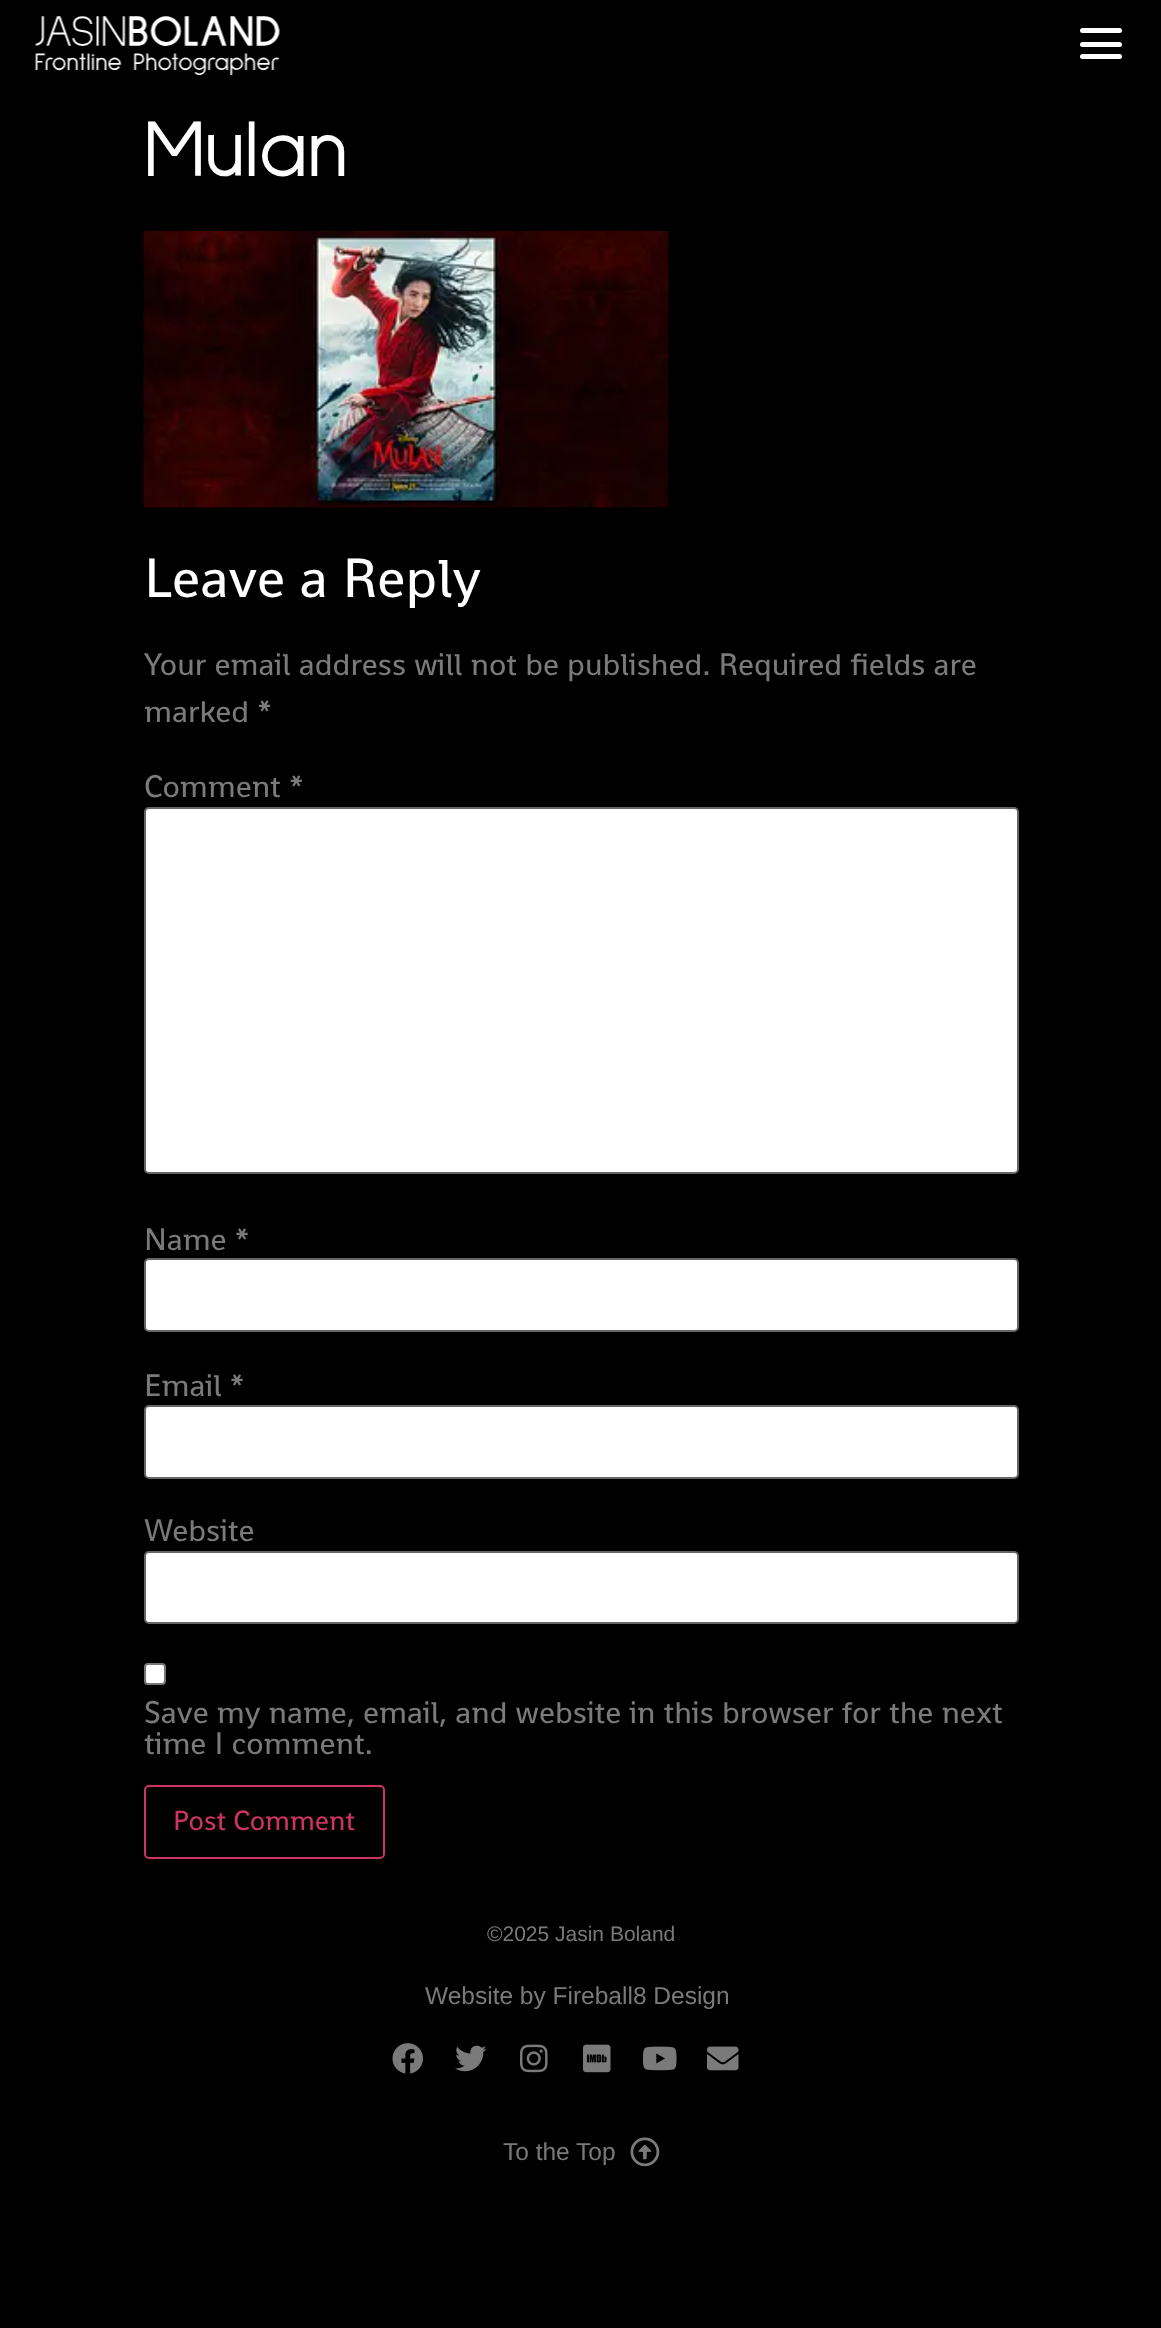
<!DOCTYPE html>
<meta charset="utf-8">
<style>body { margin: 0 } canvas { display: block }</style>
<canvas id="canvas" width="1161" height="2328"></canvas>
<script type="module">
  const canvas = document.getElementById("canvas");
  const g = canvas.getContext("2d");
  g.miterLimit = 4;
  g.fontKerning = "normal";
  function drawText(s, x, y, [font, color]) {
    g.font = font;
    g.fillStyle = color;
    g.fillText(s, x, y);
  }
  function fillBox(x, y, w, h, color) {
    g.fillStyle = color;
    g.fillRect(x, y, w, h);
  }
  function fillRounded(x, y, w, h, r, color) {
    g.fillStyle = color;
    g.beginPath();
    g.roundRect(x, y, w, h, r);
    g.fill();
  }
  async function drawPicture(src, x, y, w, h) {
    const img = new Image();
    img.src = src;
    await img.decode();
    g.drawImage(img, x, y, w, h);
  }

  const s1 = ["82px Sulphur Point", "#FFFFFF"];
  const s2 = ["56px Shanti", "#FFFFFF"];
  const s3 = ["31.5px Shanti", "#7A7A7A"];
  const s4 = ["28px Shanti", "#CC3366"];
  const s5 = ["21px Liberation Sans", "#7A7A7A"];
  const s6 = ["24.5px Liberation Sans", "#7A7A7A"];

  fillBox(0, 0, 1161, 2328, "#000000");
  await drawPicture("pic1.png", 35, 16, 245, 59);
  fillRounded(1080, 42, 42, 5, 2.5, "#FFFFFF");
  fillRounded(1080, 28, 42, 5, 2.5, "#FFFFFF");
  fillRounded(1080, 54, 42, 5, 2.5, "#FFFFFF");
  drawText("Mulan", 144, 176, s1);
  await drawPicture("pic2.png", 143, 231, 526, 277);
  drawText("Leave a Reply", 144, 597, s2);
  drawText("Your email address will not be published. Required fields are", 144, 675, s3);
  drawText("marked *", 144, 722, s3);
  drawText("Comment *", 144, 797, s3);
  g.fillStyle = "#FFFFFF";
  g.beginPath();
  g.roundRect(145, 808, 873, 365, 4);
  g.fill();
  g.strokeStyle = "#666666";
  g.lineWidth = 2;
  g.stroke();
  drawText("Name *", 144, 1250, s3);
  g.fillStyle = "#FFFFFF";
  g.beginPath();
  g.roundRect(145, 1259, 873, 72, 4);
  g.fill();
  g.stroke();
  drawText("Email *", 144, 1396, s3);
  g.fillStyle = "#FFFFFF";
  g.beginPath();
  g.roundRect(145, 1406, 873, 72, 4);
  g.fill();
  g.stroke();
  drawText("Website", 144, 1541, s3);
  g.fillStyle = "#FFFFFF";
  g.beginPath();
  g.roundRect(145, 1552, 873, 71, 4);
  g.fill();
  g.stroke();
  g.beginPath();
  g.roundRect(145, 1664, 20, 20, 3);
  g.fill();
  g.strokeStyle = "#767676";
  g.stroke();
  drawText("Save my name, email, and website in this browser for the next", 144, 1723, s3);
  drawText("time I comment.", 144, 1754, s3);
  g.beginPath();
  g.roundRect(145, 1786, 239, 72, 4);
  g.strokeStyle = "#CC3366";
  g.stroke();
  drawText("Post Comment", 173, 1830, s4);
  drawText("©2025 Jasin Boland", 487, 1941, s5);
  drawText("Website by Fireball8 Design", 425, 2004, s6);
  await drawPicture("pic3.png", 392, 2043, 31, 31);
  await drawPicture("pic4.png", 455, 2045, 32, 27);
  await drawPicture("pic5.png", 520, 2044, 28, 29);
  await drawPicture("pic6.png", 583, 2044, 28, 29);
  await drawPicture("pic7.png", 642, 2046, 35, 25);
  await drawPicture("pic8.png", 707, 2046, 32, 25);
  drawText("To the Top", 503, 2160, s6);
  await drawPicture("pic9.png", 630, 2137, 30, 30);
</script>
